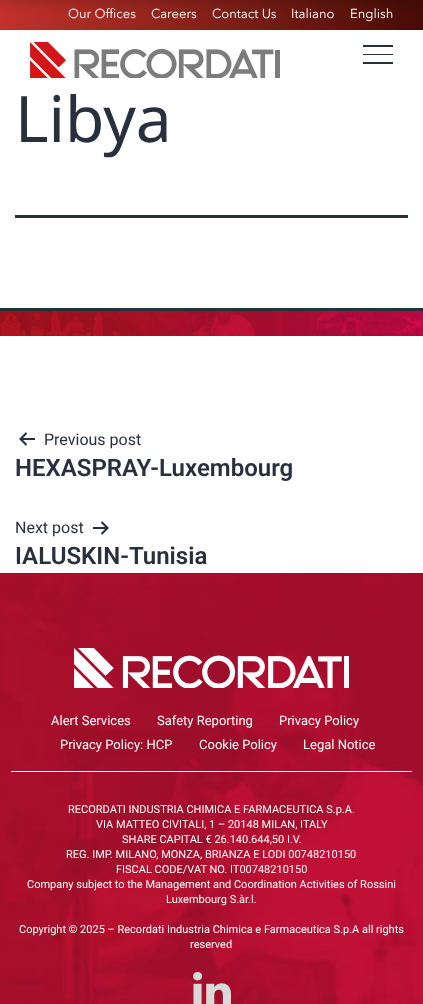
<!DOCTYPE html>
<meta charset="utf-8">
<style>body { margin: 0 } canvas { display: block }</style>
<canvas id="canvas" width="423" height="1004"></canvas>
<script type="module">
  const canvas = document.getElementById("canvas");
  const g = canvas.getContext("2d");
  g.miterLimit = 4;
  g.fontKerning = "normal";
  function drawText(s, x, y, [font, color]) {
    g.font = font;
    g.fillStyle = color;
    g.fillText(s, x, y);
  }
  function fillBox(x, y, w, h, color) {
    g.fillStyle = color;
    g.fillRect(x, y, w, h);
  }
  async function drawPicture(src, x, y, w, h) {
    const img = new Image();
    img.src = src;
    await img.decode();
    g.drawImage(img, x, y, w, h);
  }
  let gradient;

  const s1 = ["64px Noto Sans", "#28303D"];
  const s2 = ["13px Avenir Next", "#FFFFFF"];
  const s3 = ["16px Roboto", "#28303D"];
  const s4 = ["600 24px Roboto", "#28303D"];
  const s5 = ["13px Roboto", "#FFFFFF"];
  const s6 = ["11px Roboto", "#FFFFFF"];

  fillBox(0, 0, 423, 1004, "#FFFFFF");
  gradient = g.createLinearGradient(0, 15, 423, 15);
  gradient.addColorStop(0, "#C2312B");
  gradient.addColorStop(1, "#450D06");
  g.fillStyle = gradient;
  g.fillRect(0, 0, 423, 30);
  g.fillStyle = "rgba(0, 0, 0, 0.25)";
  g.filter = "blur(6.5px)";
  g.beginPath();
  g.rect(0, -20, 423, 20);
  g.fill();
  g.filter = "none";
  drawText("Libya", 15, 142, s1);
  fillBox(70, 93, 7, 1, "rgba(255, 255, 255, 0.95)");
  drawText("Our Offices", 68, 18, s2);
  drawText("Careers", 151, 18, s2);
  drawText("Contact Us", 212, 18, s2);
  drawText("Italiano", 291, 18, s2);
  drawText("English", 350, 18, s2);
  await drawPicture("pic1.png", 30, 42, 250, 36);
  fillBox(363, 45, 30, 2, "#253038");
  fillBox(363, 54, 30, 1, "#253038");
  fillBox(363, 62, 30, 2, "#253038");
  fillBox(15, 215, 393, 3, "#28303D");
  await drawPicture("pic2.png", 0, 311, 423, 25);
  fillBox(0, 308, 423, 3, "#28303D");
  await drawPicture("pic3.png", 19, 432, 16, 14);
  drawText("Previous post", 44, 445, s3);
  drawText("HEXASPRAY-Luxembourg", 15, 476, s4);
  drawText("Next post", 15, 533, s3);
  await drawPicture("pic4.png", 93, 521, 16, 14);
  drawText("IALUSKIN-Tunisia", 15, 564, s4);
  await drawPicture("pic5.png", 0, 573, 423, 431);
  fillBox(11, 771, 401, 1, "#FFFFFF");
  await drawPicture("pic6.png", 74, 648, 275, 40);
  drawText("Alert Services", 51, 725, s5);
  drawText("Safety Reporting", 157, 725, s5);
  drawText("Privacy Policy", 279, 725, s5);
  drawText("Privacy Policy: HCP", 60, 749, s5);
  drawText("Cookie Policy", 199, 749, s5);
  drawText("Legal Notice", 303, 749, s5);
  drawText("RECORDATI INDUSTRIA CHIMICA E FARMACEUTICA S.p.A.", 68, 813, s6);
  drawText("VIA MATTEO CIVITALI, 1 – 20148 MILAN, ITALY", 96, 828, s6);
  drawText("SHARE CAPITAL € 26.140.644,50 I.V.", 122, 843, s6);
  drawText("REG. IMP. MILANO, MONZA, BRIANZA E LODI 00748210150", 66, 858, s6);
  drawText("FISCAL CODE/VAT NO. IT00748210150", 116, 873, s6);
  drawText("Company subject to the Management and Coordination Activities of Rossini", 27, 888, s6);
  drawText("Luxembourg S.àr.l.", 166, 903, s6);
  drawText("Copyright © 2025 – Recordati Industria Chimica e Farmaceutica S.p.A all rights", 19, 933, s6);
  drawText("reserved", 190, 948, s6);
  await drawPicture("pic7.png", 193, 972, 38, 32);
</script>
